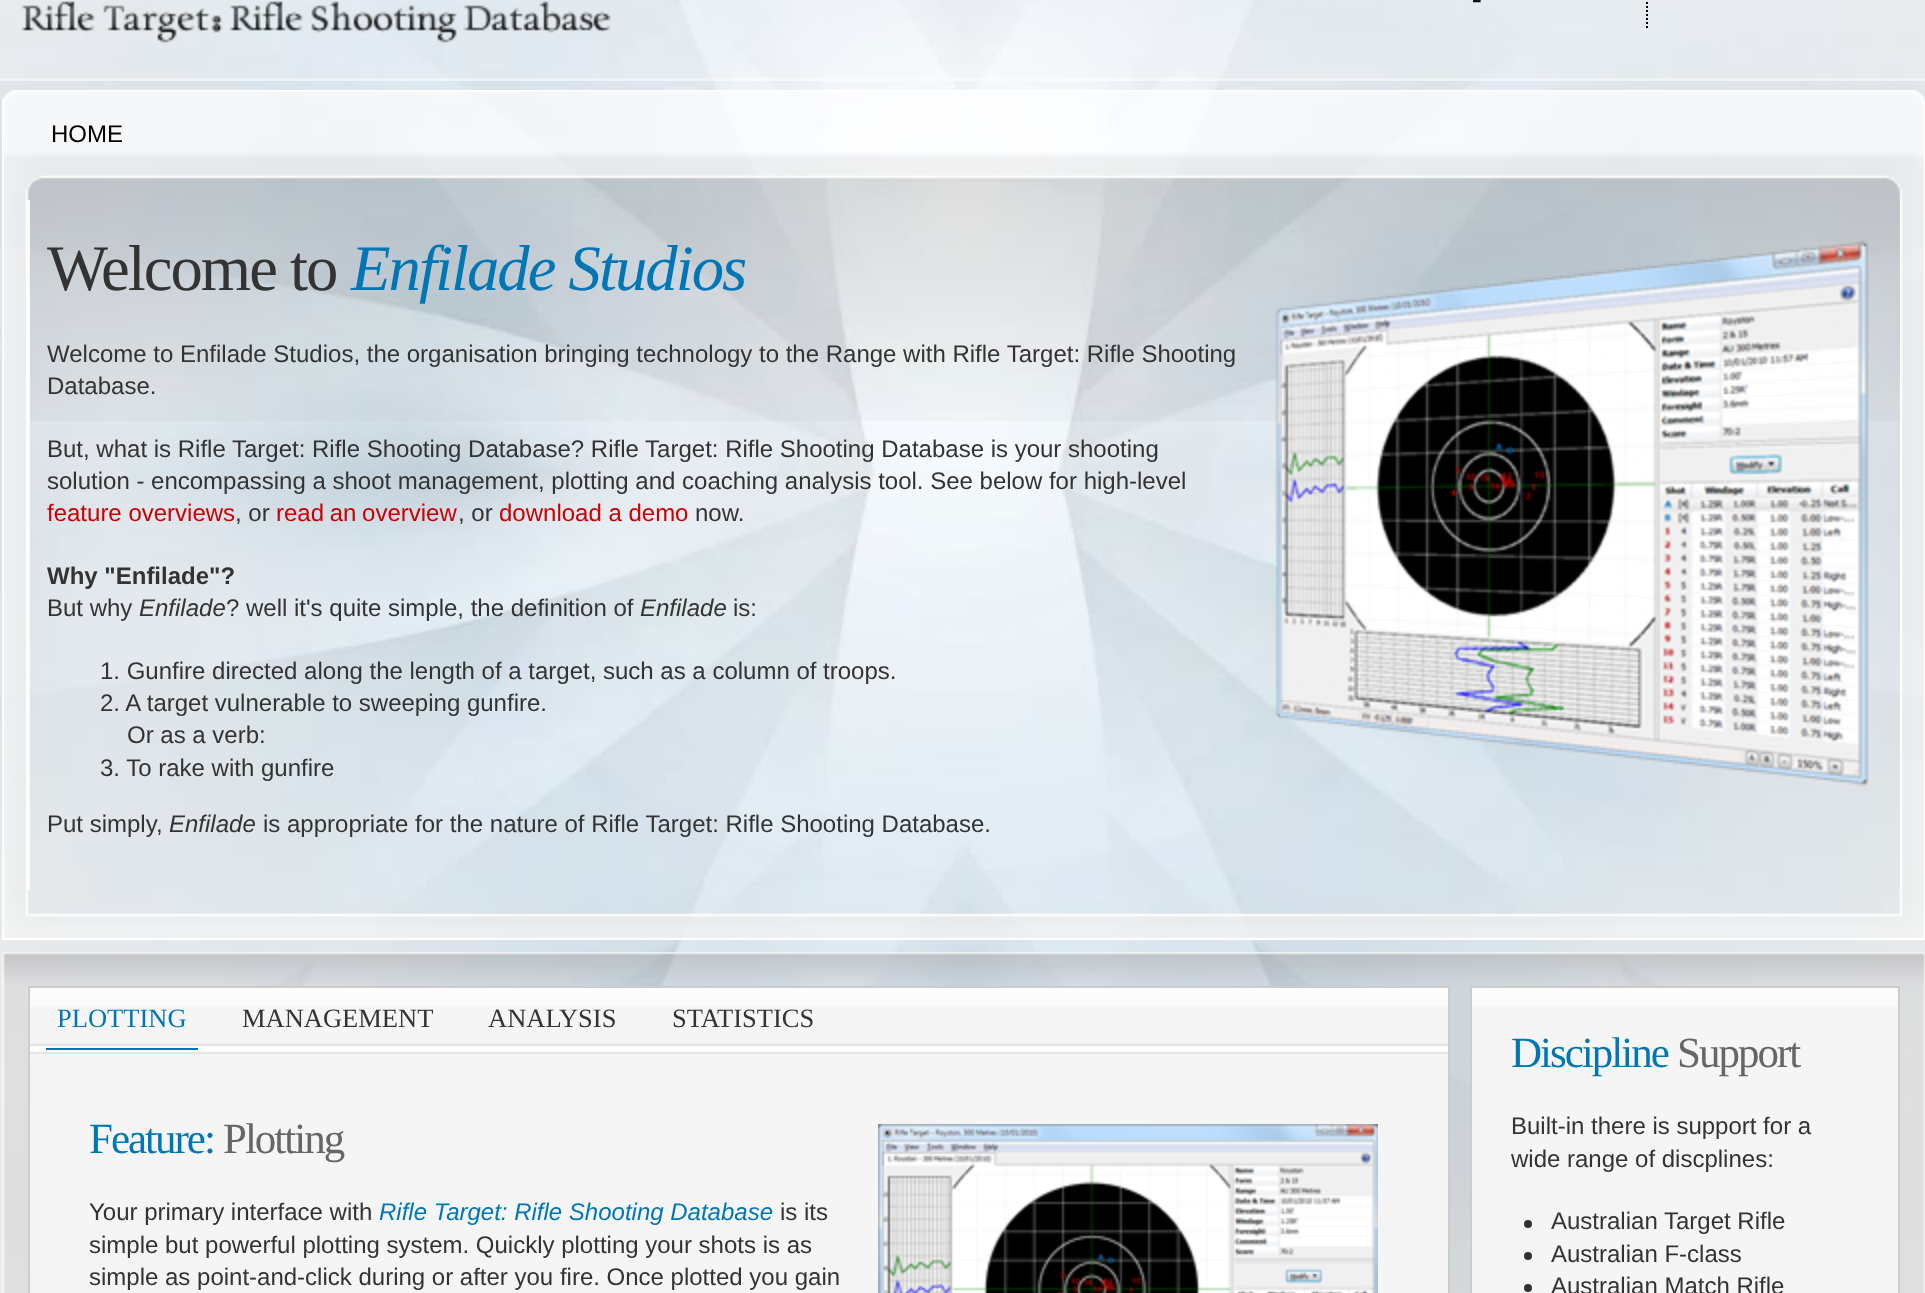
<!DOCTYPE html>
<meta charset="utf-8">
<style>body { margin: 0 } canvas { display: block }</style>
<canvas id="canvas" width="1925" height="1293"></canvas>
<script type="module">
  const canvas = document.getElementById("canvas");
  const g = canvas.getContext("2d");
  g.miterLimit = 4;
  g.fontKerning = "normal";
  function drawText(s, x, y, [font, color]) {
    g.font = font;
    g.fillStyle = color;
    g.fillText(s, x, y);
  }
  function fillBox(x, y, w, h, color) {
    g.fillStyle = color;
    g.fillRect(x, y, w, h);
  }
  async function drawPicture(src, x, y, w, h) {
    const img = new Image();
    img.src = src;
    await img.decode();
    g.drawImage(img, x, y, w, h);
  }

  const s1 = ["italic 29px Liberation Serif", "#000000"];
  const s2 = ["24px Liberation Sans", "#000000"];
  const s3 = ["64.75px Liberation Serif", "#333333"];
  const s4 = ["italic 64.75px Liberation Serif", "#0077B4"];
  const s5 = ["24px Liberation Sans", "#333333"];
  const s6 = ["24px Liberation Sans", "#CC0000"];
  const s7 = ["bold 24px Liberation Sans", "#333333"];
  const s8 = ["italic 24px Liberation Sans", "#333333"];
  const s9 = ["26.5px Liberation Serif", "#0077B4"];
  const s10 = ["26.5px Liberation Serif", "#333333"];
  const s11 = ["43px Liberation Serif", "#0077B4"];
  const s12 = ["43px Liberation Serif", "#666666"];
  const s13 = ["italic 24px Liberation Sans", "#0077B4"];

  fillBox(0, 0, 1925, 1293, "#FFFFFF");
  await drawPicture("pic1.png", 0, 0, 1925, 1293);
  await drawPicture("pic2.png", 0, 0, 1925, 78);
  await drawPicture("pic3.png", 21, 1, 590, 42);
  g.beginPath();
  g.moveTo(1647, -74);
  g.lineTo(1647, 30);
  g.strokeStyle = "#000000";
  g.lineWidth = 2;
  g.setLineDash([2, 2]);
  g.stroke();
  drawText("-", 1472, 8, s1);
  fillBox(0, 78, 1925, 3, "rgba(255, 255, 255, 0.53)");
  await drawPicture("pic4.png", 2, 90, 50, 110);
  await drawPicture("pic5.png", 52, 90, 1824, 110);
  drawText("HOME", 51, 142, s2);
  await drawPicture("pic6.png", 1876, 90, 49, 110);
  await drawPicture("pic7.png", 28, 200, 1872, 221);
  await drawPicture("pic8.png", 2, 200, 28, 690);
  await drawPicture("pic9.png", 1900, 200, 25, 690);
  g.letterSpacing = "-2px";
  drawText("Welcome to", 47, 290, s3);
  drawText("Enfilade Studios", 351, 290, s4);
  await drawPicture("pic10.png", 1275, 240, 594, 547);
  g.letterSpacing = "0px";
  drawText("Welcome to Enfilade Studios, the organisation bringing technology to the Range with Rifle Target: Rifle Shooting", 47, 362, s5);
  drawText("Database.", 47, 394, s5);
  drawText("But, what is Rifle Target: Rifle Shooting Database? Rifle Target: Rifle Shooting Database is your shooting", 47, 457, s5);
  drawText("solution - encompassing a shoot management, plotting and coaching analysis tool. See below for high-level", 47, 489, s5);
  drawText("feature overviews", 47, 521, s6);
  drawText(", or", 235, 521, s5);
  g.wordSpacing = "-1px";
  drawText("read an overview", 276, 521, s6);
  g.wordSpacing = "0px";
  drawText(", or", 458, 521, s5);
  drawText("download a demo", 499, 521, s6);
  drawText("now.", 695, 521, s5);
  drawText("Why \"Enfilade\"?", 47, 584, s7);
  drawText("But why", 47, 616, s5);
  drawText("Enfilade", 139, 616, s8);
  drawText("? well it's quite simple, the definition of", 226, 616, s5);
  drawText("Enfilade", 640, 616, s8);
  drawText("is:", 733, 616, s5);
  drawText("1. Gunfire directed along the length of a target, such as a column of troops.", 100, 679, s5);
  drawText("2. A target vulnerable to sweeping gunfire.", 100, 711, s5);
  drawText("Or as a verb:", 127, 743, s5);
  drawText("3. To rake with gunfire", 100, 776, s5);
  drawText("Put simply,", 47, 832, s5);
  drawText("Enfilade", 169, 832, s8);
  drawText("is appropriate for the nature of Rifle Target: Rifle Shooting Database.", 263, 832, s5);
  await drawPicture("pic11.png", 2, 890, 50, 50);
  await drawPicture("pic12.png", 52, 913, 1824, 27);
  await drawPicture("pic13.png", 1876, 890, 49, 50);
  await drawPicture("pic14.png", 2, 952, 26, 34);
  await drawPicture("pic15.png", 28, 952, 1872, 34);
  await drawPicture("pic16.png", 1900, 952, 25, 34);
  fillBox(1450, 986, 20, 307, "rgba(149, 149, 149, 0.14)");
  await drawPicture("pic17.png", 2, 986, 26, 307);
  await drawPicture("pic18.png", 1900, 986, 25, 307);
  fillBox(30, 1006, 1418, 287, "#F5F5F5");
  await drawPicture("pic19.png", 30, 988, 1418, 18);
  fillBox(28, 986, 1422, 2, "#CCCCCC");
  fillBox(1448, 986, 2, 307, "#CCCCCC");
  fillBox(28, 986, 2, 307, "#CCCCCC");
  await drawPicture("pic20.png", 30, 1044, 1418, 10);
  fillBox(46, 1048, 152, 2, "#0077B4");
  drawText("PLOTTING", 57, 1027, s9);
  drawText("MANAGEMENT", 242, 1027, s10);
  drawText("ANALYSIS", 488, 1027, s10);
  drawText("STATISTICS", 672, 1027, s10);
  g.letterSpacing = "-2px";
  drawText("Feature:", 89, 1153, s11);
  drawText("Plotting", 223, 1153, s12);
  await drawPicture("pic21.png", 878, 1124, 500, 169);
  g.letterSpacing = "0px";
  drawText("Your primary interface with", 89, 1220, s5);
  drawText("Rifle Target: Rifle Shooting Database", 379, 1220, s13);
  drawText("is its", 780, 1220, s5);
  drawText("simple but powerful plotting system. Quickly plotting your shots is as", 89, 1253, s5);
  drawText("simple as point-and-click during or after you fire. Once plotted you gain", 89, 1285, s5);
  fillBox(1472, 1006, 426, 287, "#F5F5F5");
  await drawPicture("pic22.png", 1472, 988, 426, 18);
  fillBox(1470, 986, 430, 2, "#CCCCCC");
  fillBox(1898, 986, 2, 307, "#CCCCCC");
  fillBox(1470, 986, 2, 307, "#CCCCCC");
  g.letterSpacing = "-2px";
  drawText("Discipline", 1511, 1067, s11);
  drawText("Support", 1677, 1067, s12);
  g.letterSpacing = "0px";
  drawText("Built-in there is support for a", 1511, 1134, s5);
  drawText("wide range of discplines:", 1511, 1167, s5);
  g.beginPath();
  g.arc(1528, 1224, 4, 0, Math.PI * 2);
  g.fill();
  drawText("Australian Target Rifle", 1551, 1229, s5);
  g.beginPath();
  g.arc(1528, 1256, 4, 0, Math.PI * 2);
  g.fill();
  drawText("Australian F-class", 1551, 1262, s5);
  g.beginPath();
  g.arc(1528, 1288, 4, 0, Math.PI * 2);
  g.fill();
  drawText("Australian Match Rifle", 1551, 1294, s5);
</script>
